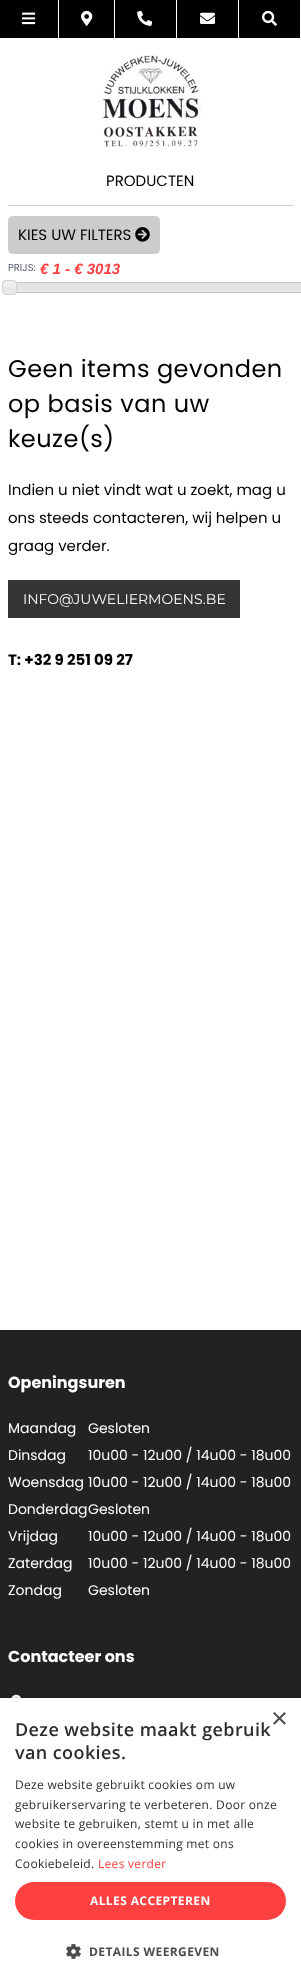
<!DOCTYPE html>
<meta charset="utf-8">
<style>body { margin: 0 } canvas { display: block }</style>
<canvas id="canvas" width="301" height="1983"></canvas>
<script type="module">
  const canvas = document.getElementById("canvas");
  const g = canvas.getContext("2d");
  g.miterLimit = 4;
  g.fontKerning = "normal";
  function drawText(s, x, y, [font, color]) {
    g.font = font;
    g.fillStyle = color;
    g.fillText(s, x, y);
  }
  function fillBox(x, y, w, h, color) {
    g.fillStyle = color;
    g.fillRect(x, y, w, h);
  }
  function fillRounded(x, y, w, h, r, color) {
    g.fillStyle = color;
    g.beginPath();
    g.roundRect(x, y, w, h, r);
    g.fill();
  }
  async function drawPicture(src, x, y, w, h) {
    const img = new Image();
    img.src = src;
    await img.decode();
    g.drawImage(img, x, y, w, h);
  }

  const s1 = ["15px Poppins", "#000000"];
  const s2 = ["10px Poppins", "#565B6F"];
  const s3 = ["italic bold 15px Liberation Sans", "#FF4040"];
  const s4 = ["24px Poppins", "#000000"];
  const s5 = ["14px Montserrat", "#FFFFFF"];
  const s6 = ["bold 15px Poppins", "#000000"];
  const s7 = ["bold 16px Poppins", "#FFFFFF"];
  const s8 = ["14px Poppins", "#FFFFFF"];
  const s9 = ["29px Liberation Sans", "#4D4D4D"];
  const s10 = ["600 18px Open Sans", "#2D2D2D"];
  const s11 = ["12px Open Sans", "#2D2D2D"];
  const s12 = ["12px Open Sans", "#FF4040"];
  const s13 = ["bold 12px Open Sans", "#FFFFFF"];
  const s14 = ["bold 12px Open Sans", "#4D4D4D"];

  fillBox(0, 0, 301, 1983, "#FFFFFF");
  fillBox(0, 0, 58, 38, "#000000");
  await drawPicture("pic1.png", 22, 12, 14, 13);
  fillBox(59, 0, 55, 38, "#000000");
  await drawPicture("pic2.png", 81, 10, 12, 16);
  fillBox(115, 0, 61, 38, "#000000");
  await drawPicture("pic3.png", 137, 10, 16, 16);
  fillBox(177, 0, 61, 38, "#000000");
  await drawPicture("pic4.png", 200, 12, 15, 12);
  fillBox(239, 0, 61, 38, "#000000");
  await drawPicture("pic5.png", 262, 10, 15, 16);
  await drawPicture("pic6.png", 102, 55, 99, 92);
  fillBox(8, 205, 285, 1, "#CCCCCC");
  drawText("PRODUCTEN", 106, 186, s1);
  fillRounded(8, 216, 152, 38, 5, "#CCCCCC");
  drawText("KIES UW FILTERS", 18, 240, s1);
  await drawPicture("pic7.png", 135, 227, 15, 15);
  drawText("PRIJS:", 8, 271, s2);
  drawText("€ 1 - € 3013", 40, 274, s3);
  g.strokeStyle = "#C5C5C5";
  g.strokeRect(8.5, 282.5, 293, 10);
  fillBox(16, 283, 285, 9, "#E4E4E4");
  await drawPicture("pic8.png", 2, 280, 15, 15);
  g.beginPath();
  g.roundRect(2.5, 280.5, 14, 14, 3.5);
  g.strokeStyle = "#D3D3D3";
  g.stroke();
  g.letterSpacing = "0.5px";
  drawText("Geen items gevonden", 8, 377, s4);
  drawText("op basis van uw", 8, 412, s4);
  drawText("keuze(s)", 8, 447, s4);
  g.letterSpacing = "0px";
  drawText("Indien u niet vindt wat u zoekt, mag u", 8, 495, s1);
  drawText("ons steeds contacteren, wij helpen u", 8, 523, s1);
  drawText("graag verder.", 8, 551, s1);
  fillBox(8, 580, 232, 38, "#343434");
  drawText("INFO@JUWELIERMOENS.BE", 23, 604, s5);
  drawText("T: +32 9 251 09 27", 8, 665, s6);
  fillBox(0, 1330, 301, 368, "#222222");
  drawText("Openingsuren", 8, 1388, s7);
  drawText("Maandag", 8, 1433, s8);
  drawText("Gesloten", 88, 1433, s8);
  drawText("Dinsdag", 8, 1460, s8);
  drawText("10u00 - 12u00 / 14u00 - 18u00", 88, 1460, s8);
  drawText("Woensdag", 8, 1487, s8);
  drawText("10u00 - 12u00 / 14u00 - 18u00", 88, 1487, s8);
  drawText("Donderdag", 8, 1514, s8);
  drawText("Gesloten", 88, 1514, s8);
  drawText("Vrijdag", 8, 1541, s8);
  drawText("10u00 - 12u00 / 14u00 - 18u00", 88, 1541, s8);
  drawText("Zaterdag", 8, 1568, s8);
  drawText("10u00 - 12u00 / 14u00 - 18u00", 88, 1568, s8);
  drawText("Zondag", 8, 1595, s8);
  drawText("Gesloten", 88, 1595, s8);
  drawText("Contacteer ons", 8, 1662, s7);
  await drawPicture("pic9.png", 11, 1694, 10, 4);
  g.fillStyle = "rgba(0, 0, 0, 0.35)";
  g.filter = "blur(4px)";
  g.beginPath();
  g.rect(1, 1700, 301, 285);
  g.fill();
  g.filter = "none";
  fillBox(0, 1698, 301, 285, "#FFFFFF");
  drawText("×", 271, 1728, s9);
  g.letterSpacing = "0.4px";
  drawText("Deze website maakt gebruik", 15, 1736, s10);
  drawText("van cookies.", 15, 1759, s10);
  g.letterSpacing = "0.3px";
  drawText("Deze website gebruikt cookies om uw", 15, 1789, s11);
  drawText("gebruikerservaring te verbeteren. Door onze", 15, 1809, s11);
  drawText("website te gebruiken, stemt u in met alle", 15, 1828, s11);
  drawText("cookies in overeenstemming met ons", 15, 1848, s11);
  drawText("Cookiebeleid.", 15, 1868, s11);
  drawText("Lees verder", 98, 1868, s12);
  fillRounded(15, 1882, 271, 38, 19, "#FF4040");
  g.letterSpacing = "0.4px";
  drawText("ALLES ACCEPTEREN", 90, 1905, s13);
  await drawPicture("pic10.png", 66, 1944, 15, 15);
  drawText("DETAILS WEERGEVEN", 89, 1956, s14);
</script>
